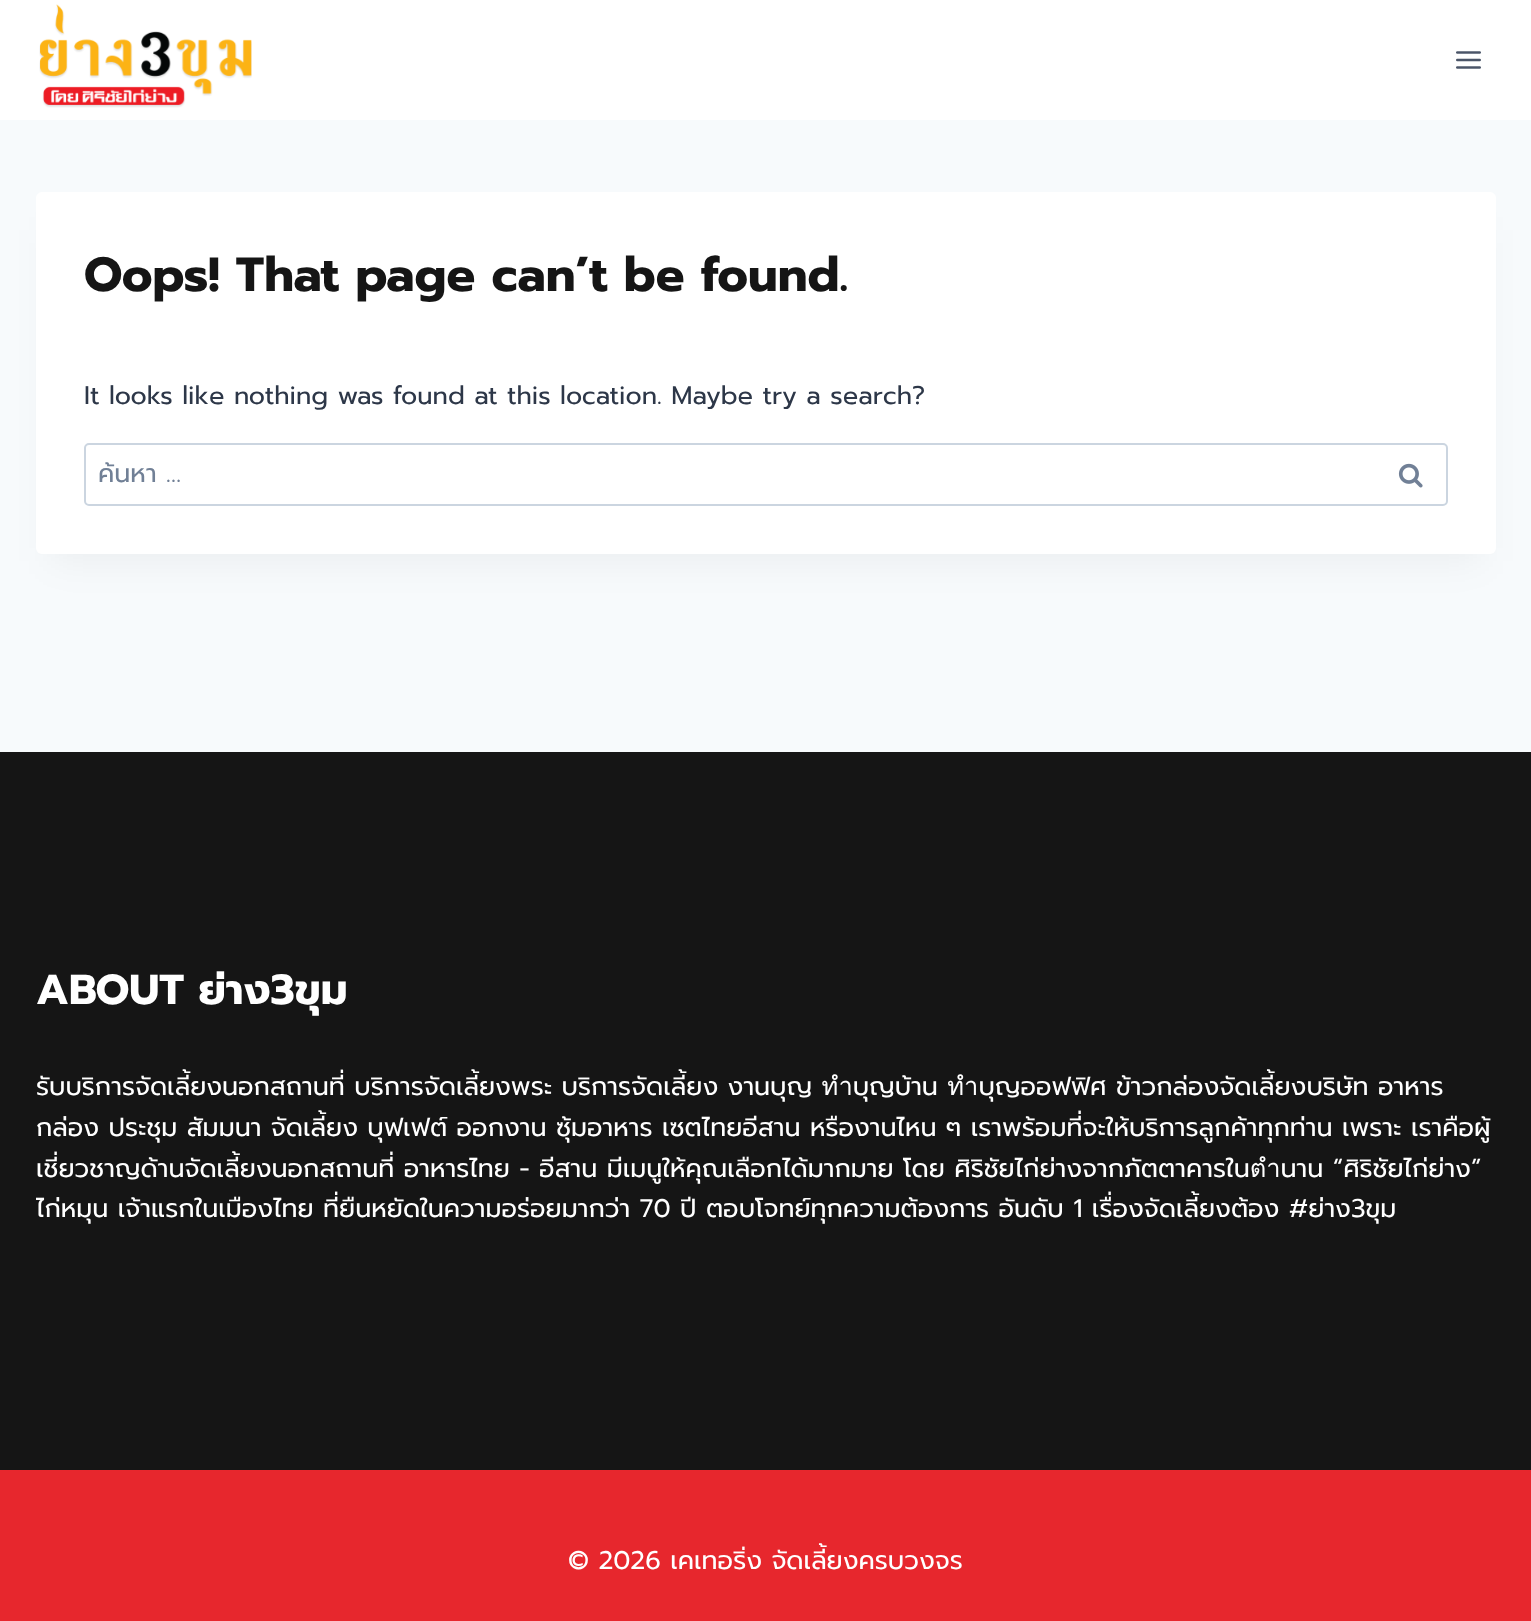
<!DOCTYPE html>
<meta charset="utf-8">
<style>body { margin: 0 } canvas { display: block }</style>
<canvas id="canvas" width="1531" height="1621"></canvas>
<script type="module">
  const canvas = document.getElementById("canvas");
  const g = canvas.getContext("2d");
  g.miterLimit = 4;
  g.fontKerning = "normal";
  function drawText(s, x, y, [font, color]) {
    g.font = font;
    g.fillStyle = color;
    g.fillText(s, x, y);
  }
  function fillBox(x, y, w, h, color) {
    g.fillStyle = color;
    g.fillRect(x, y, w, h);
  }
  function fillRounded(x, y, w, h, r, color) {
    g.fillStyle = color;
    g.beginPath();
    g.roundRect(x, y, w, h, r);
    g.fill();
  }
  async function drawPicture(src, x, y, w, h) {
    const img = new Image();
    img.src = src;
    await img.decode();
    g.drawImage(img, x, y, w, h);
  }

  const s1 = ["bold 48px Prompt", "#151515"];
  const s2 = ["25.5px Prompt", "#2D3748"];
  const s3 = ["25.5px Prompt", "#718096"];
  const s4 = ["bold 42px Prompt", "#FFFFFF"];
  const s5 = ["25.5px Prompt", "#FFFFFF"];

  fillBox(0, 0, 1531, 1621, "#F7FAFC");
  fillBox(0, 0, 1531, 120, "#FFFFFF");
  await drawPicture("pic1.png", 39, 4, 213, 104);
  await drawPicture("pic2.png", 1456, 51, 25, 18);
  g.fillStyle = "rgba(0, 0, 0, 0.05)";
  g.filter = "blur(19px)";
  g.beginPath();
  g.rect(51, 230, 1430, 331);
  g.fill();
  g.filter = "none";
  fillRounded(36, 192, 1460, 362, 6, "#FFFFFF");
  drawText("Oops! That page can’t be found.", 84, 291, s1);
  drawText("It looks like nothing was found at this location. Maybe try a search?", 84, 404, s2);
  g.beginPath();
  g.roundRect(85, 444, 1362, 61, 4);
  g.strokeStyle = "#CBD5E0";
  g.lineWidth = 2;
  g.stroke();
  g.save();
  g.beginPath();
  g.rect(99, 453, 1233, 39);
  g.clip();
  drawText("ค้นหา …", 98, 482, s3);
  g.restore();
  await drawPicture("pic3.png", 1398, 463, 25, 25);
  fillBox(0, 752, 1531, 718, "#151515");
  drawText("ABOUT ย่าง3ขุม", 36, 1004, s4);
  drawText("รับบริการจัดเลี้ยงนอกสถานที่ บริการจัดเลี้ยงพระ บริการจัดเลี้ยง งานบุญ ทำบุญบ้าน ทำบุญออฟฟิศ ข้าวกล่องจัดเลี้ยงบริษัท อาหาร", 36, 1095, s5);
  drawText("กล่อง ประชุม สัมมนา จัดเลี้ยง บุฟเฟต์ ออกงาน ซุ้มอาหาร เซตไทยอีสาน หรืองานไหน ๆ เราพร้อมที่จะให้บริการลูกค้าทุกท่าน เพราะ เราคือผู้", 36, 1136, s5);
  drawText("เชี่ยวชาญด้านจัดเลี้ยงนอกสถานที่ อาหารไทย - อีสาน มีเมนูให้คุณเลือกได้มากมาย โดย ศิริชัยไก่ย่างจากภัตตาคารในตำนาน “ศิริชัยไก่ย่าง”", 36, 1177, s5);
  drawText("ไก่หมุน เจ้าแรกในเมืองไทย ที่ยืนหยัดในความอร่อยมากว่า 70 ปี ตอบโจทย์ทุกความต้องการ อันดับ 1 เรื่องจัดเลี้ยงต้อง #ย่าง3ขุม", 36, 1217, s5);
  fillBox(0, 1470, 1531, 151, "#E7272D");
  drawText("© 2026 เคเทอริ่ง จัดเลี้ยงครบวงจร", 568, 1569, s5);
</script>
